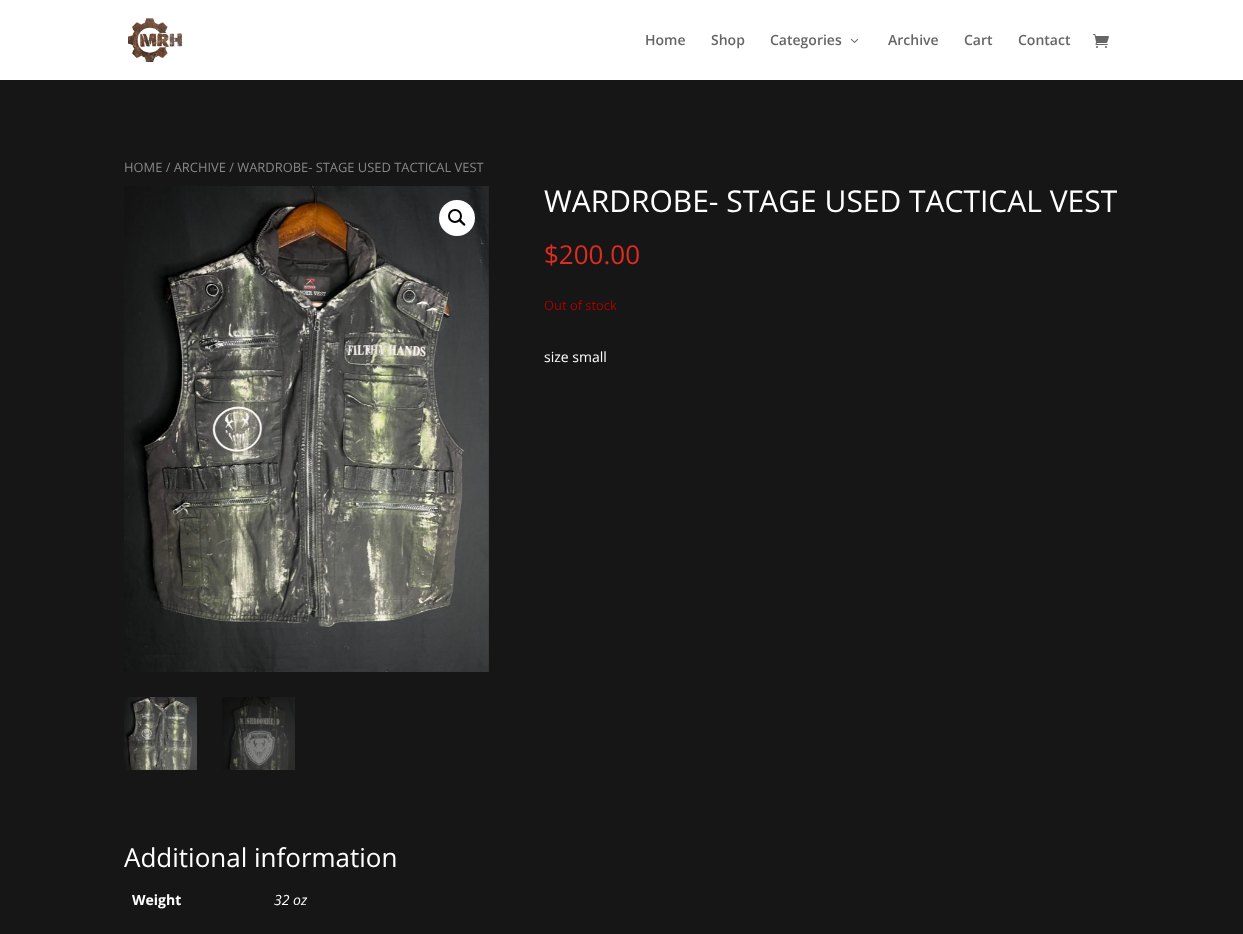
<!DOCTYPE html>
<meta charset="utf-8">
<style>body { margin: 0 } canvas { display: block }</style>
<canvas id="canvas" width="1243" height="934"></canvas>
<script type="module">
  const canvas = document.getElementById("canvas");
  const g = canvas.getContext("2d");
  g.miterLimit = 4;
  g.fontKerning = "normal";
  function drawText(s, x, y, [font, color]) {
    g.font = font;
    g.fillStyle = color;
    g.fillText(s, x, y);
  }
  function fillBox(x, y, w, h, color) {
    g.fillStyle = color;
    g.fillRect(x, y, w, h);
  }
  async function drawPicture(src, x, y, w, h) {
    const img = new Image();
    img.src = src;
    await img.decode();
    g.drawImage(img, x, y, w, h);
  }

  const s1 = ["600 14px Open Sans", "#666666"];
  const s2 = ["12.9px Open Sans", "#878787"];
  const s3 = ["30px Open Sans", "#FFFFFF"];
  const s4 = ["26px Open Sans", "#E02B20"];
  const s5 = ["12.9px Open Sans", "#AA0000"];
  const s6 = ["14px Open Sans", "#FFFFFF"];
  const s7 = ["26px Open Sans", "#FFFFFF"];
  const s8 = ["bold 14px Open Sans", "#FFFFFF"];
  const s9 = ["italic 14px Open Sans", "#FFFFFF"];

  fillBox(0, 0, 1243, 934, "#161616");
  fillBox(0, 0, 1243, 80, "#FFFFFF");
  await drawPicture("pic1.png", 128, 18, 54, 44);
  drawText("Home", 645, 45, s1);
  drawText("Shop", 711, 45, s1);
  drawText("Categories", 770, 45, s1);
  await drawPicture("pic2.png", 850, 38, 9, 5);
  drawText("Archive", 888, 45, s1);
  drawText("Cart", 964, 45, s1);
  drawText("Contact", 1018, 45, s1);
  await drawPicture("pic3.png", 1093, 34, 16, 14);
  drawText("HOME / ARCHIVE / WARDROBE- STAGE USED TACTICAL VEST", 124, 172, s2);
  await drawPicture("pic4.png", 124, 186, 365, 486);
  g.fillStyle = "#FFFFFF";
  g.beginPath();
  g.arc(457, 218, 18, 0, Math.PI * 2);
  g.fill();
  g.beginPath();
  g.arc(455, 216, 6, 0, Math.PI * 2);
  g.strokeStyle = "#000000";
  g.lineWidth = 2;
  g.stroke();
  g.fillStyle = "#000000";
  g.beginPath();
  g.moveTo(459.5, 220);
  g.bezierCurveTo(460.5, 218.5, 462.5, 221.5, 463, 222);
  g.bezierCurveTo(463.5, 222.5, 466.5, 224.5, 465, 225.5);
  g.bezierCurveTo(464, 226.5, 462, 224, 461.5, 223.5);
  g.bezierCurveTo(461, 223, 458, 221, 459.5, 220);
  g.closePath();
  g.fill();
  await drawPicture("pic5.png", 124, 697, 73, 73);
  await drawPicture("pic6.png", 222, 697, 73, 73);
  drawText("WARDROBE- STAGE USED TACTICAL VEST", 544, 212, s3);
  drawText("$200.00", 544, 264, s4);
  drawText("Out of stock", 544, 310, s5);
  drawText("size small", 544, 362, s6);
  drawText("Additional information", 124, 867, s7);
  drawText("Weight", 132, 905, s8);
  drawText("32 oz", 274, 905, s9);
</script>
